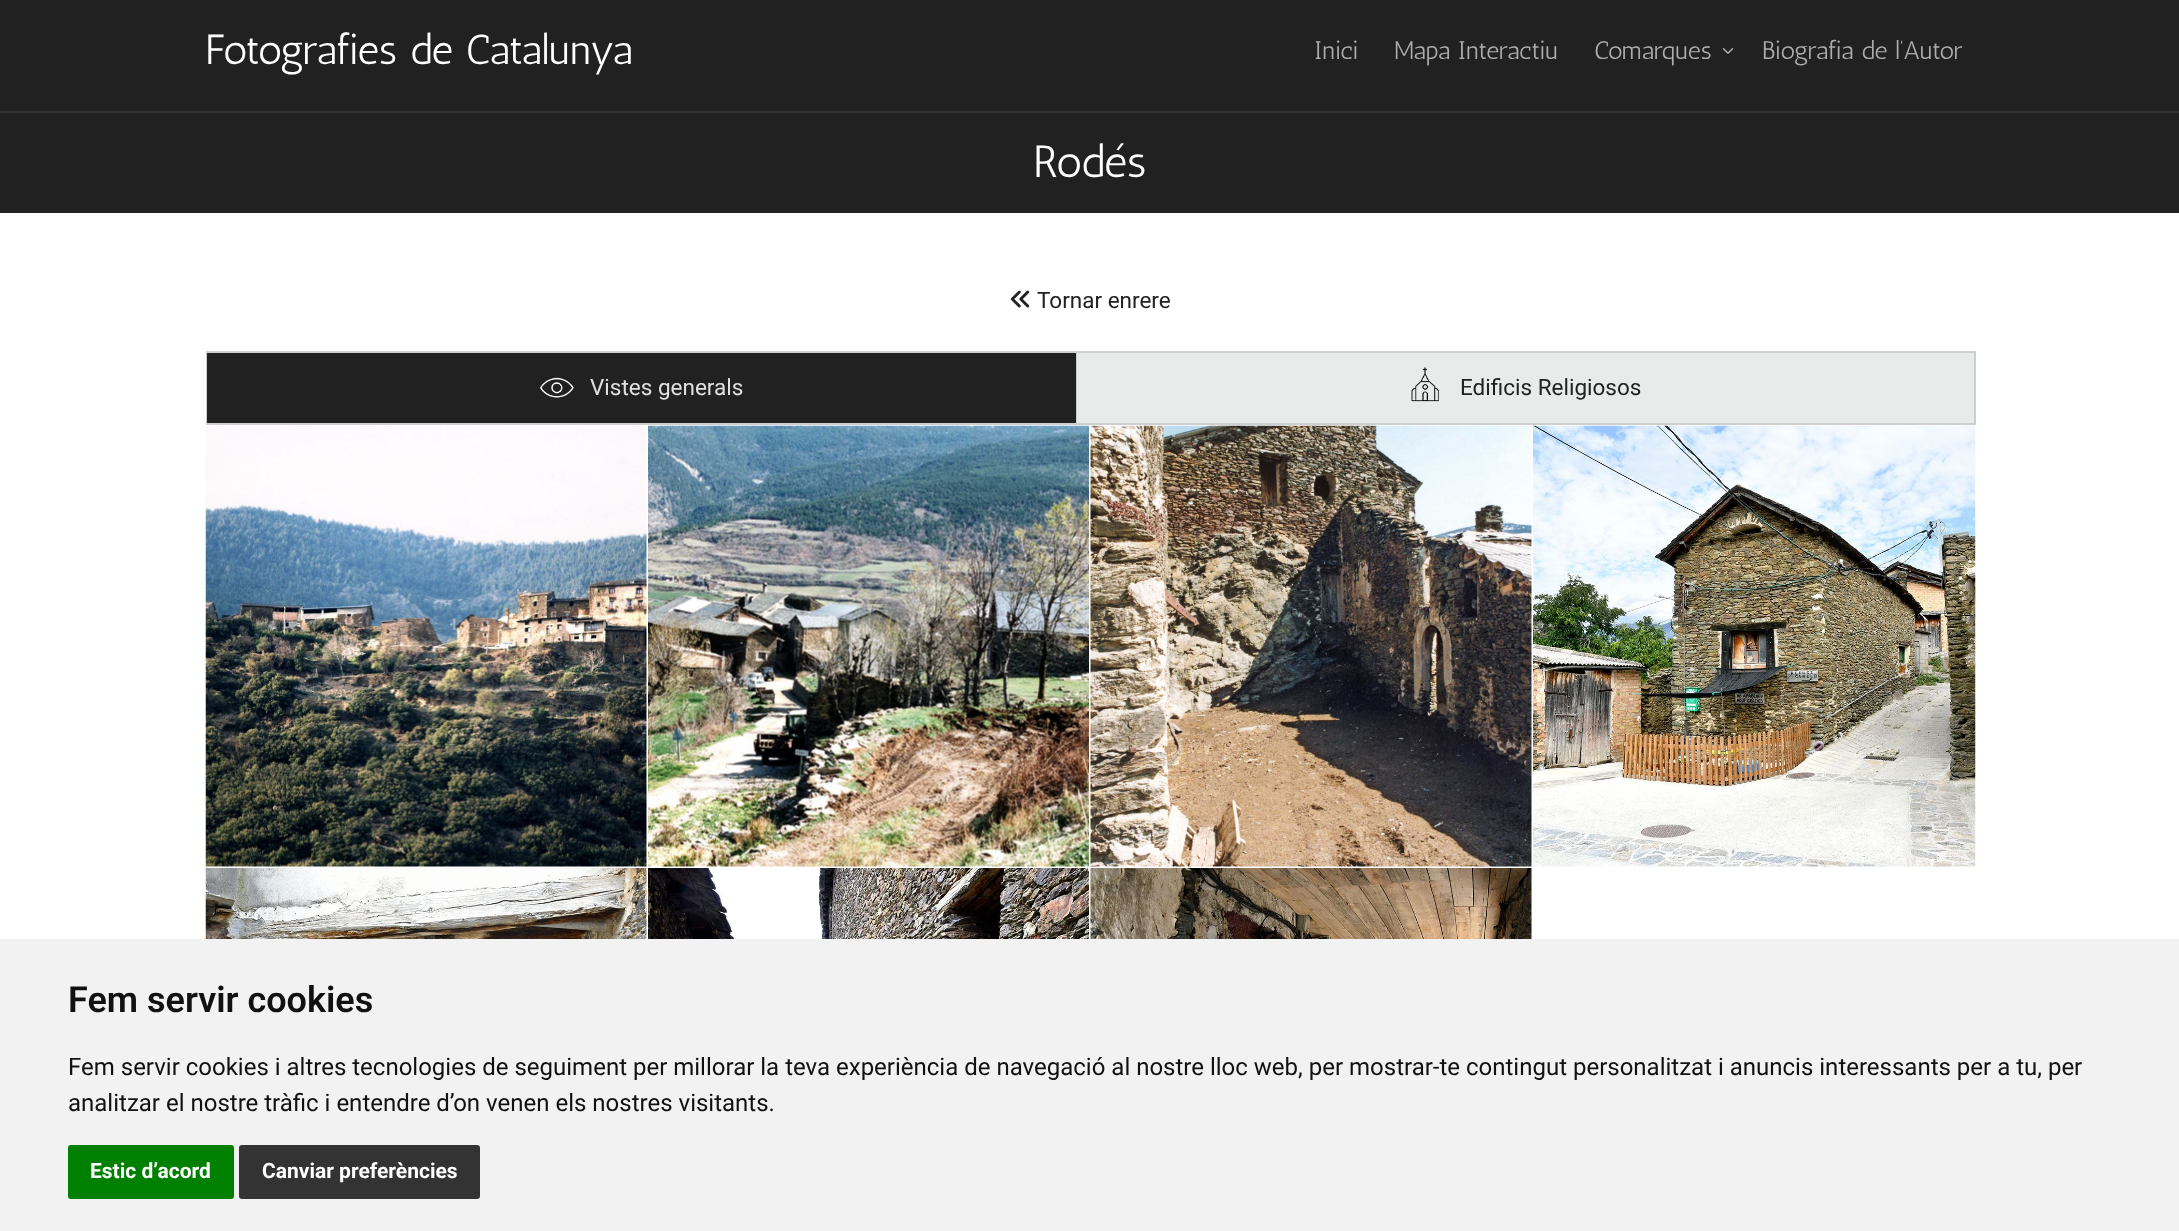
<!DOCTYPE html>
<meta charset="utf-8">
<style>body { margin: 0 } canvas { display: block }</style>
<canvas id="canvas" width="2179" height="1231"></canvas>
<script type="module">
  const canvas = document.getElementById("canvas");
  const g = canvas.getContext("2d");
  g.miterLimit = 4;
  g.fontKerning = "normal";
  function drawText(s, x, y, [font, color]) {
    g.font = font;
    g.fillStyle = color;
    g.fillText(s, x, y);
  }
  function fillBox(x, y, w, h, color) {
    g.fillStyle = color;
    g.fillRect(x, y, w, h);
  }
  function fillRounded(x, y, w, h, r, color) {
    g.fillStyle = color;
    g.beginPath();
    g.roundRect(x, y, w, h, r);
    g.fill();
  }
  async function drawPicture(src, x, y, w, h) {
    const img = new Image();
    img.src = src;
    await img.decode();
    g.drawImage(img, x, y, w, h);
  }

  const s1 = ["42px Antic", "#FFFFFF"];
  const s2 = ["25.5px Antic", "#ADADAD"];
  const s3 = ["45px Antic", "#FFFFFF"];
  const s4 = ["22.5px Roboto", "#212121"];
  const s5 = ["22.5px Roboto", "#E0E0E0"];
  const s6 = ["600 36px Roboto", "#111111"];
  const s7 = ["24px Roboto", "#111111"];
  const s8 = ["bold 21px Roboto", "#FFFFFF"];

  fillBox(0, 0, 2179, 1231, "#FFFFFF");
  fillBox(0, 0, 2179, 111, "#212121");
  fillBox(0, 111, 2179, 2, "#333333");
  drawText("Fotografies de Catalunya", 205, 64, s1);
  drawText("Inici", 1314, 59, s2);
  drawText("Mapa Interactiu", 1394, 59, s2);
  drawText("Comarques", 1594, 59, s2);
  await drawPicture("pic1.png", 1722, 48, 12, 6);
  drawText("Biografia de l’Autor", 1762, 59, s2);
  fillBox(0, 113, 2179, 100, "#212121");
  drawText("Rodés", 1033, 177, s3);
  await drawPicture("pic2.png", 1010, 290, 20, 18);
  drawText("Tornar enrere", 1037, 308, s4);
  g.strokeStyle = "#CECECE";
  g.lineWidth = 2;
  g.strokeRect(207, 352, 869, 72);
  fillBox(207, 353, 869, 70, "#212121");
  await drawPicture("pic3.png", 540, 377, 34, 21);
  drawText("Vistes generals", 590, 395, s5);
  fillBox(1077, 353, 897, 70, "#E7ECEA");
  fillBox(1077, 351, 899, 2, "#CECECE");
  fillBox(1974, 351, 2, 74, "#CECECE");
  fillBox(1077, 423, 899, 2, "#CECECE");
  await drawPicture("pic4.png", 1411, 367, 28, 35);
  drawText("Edificis Religiosos", 1460, 395, s4);
  await drawPicture("pic5.png", 205, 426, 442, 441);
  await drawPicture("pic6.png", 648, 425, 441, 442);
  await drawPicture("pic7.png", 1090, 425, 442, 442);
  await drawPicture("pic8.png", 1533, 425, 443, 442);
  await drawPicture("pic9.png", 205, 868, 442, 71);
  await drawPicture("pic10.png", 648, 868, 441, 71);
  await drawPicture("pic11.png", 1090, 868, 442, 71);
  fillBox(0, 939, 2179, 292, "#F2F2F2");
  drawText("Fem servir cookies", 68, 1012, s6);
  drawText("Fem servir cookies i altres tecnologies de seguiment per millorar la teva experiència de navegació al nostre lloc web, per mostrar-te contingut personalitzat i anuncis interessants per a tu, per", 68, 1075, s7);
  drawText("analitzar el nostre tràfic i entendre d’on venen els nostres visitants.", 68, 1111, s7);
  fillRounded(68, 1145, 166, 54, 3, "#008000");
  drawText("Estic d’acord", 90, 1178, s8);
  fillRounded(239, 1145, 241, 54, 3, "#333333");
  drawText("Canviar preferències", 262, 1178, s8);
</script>
